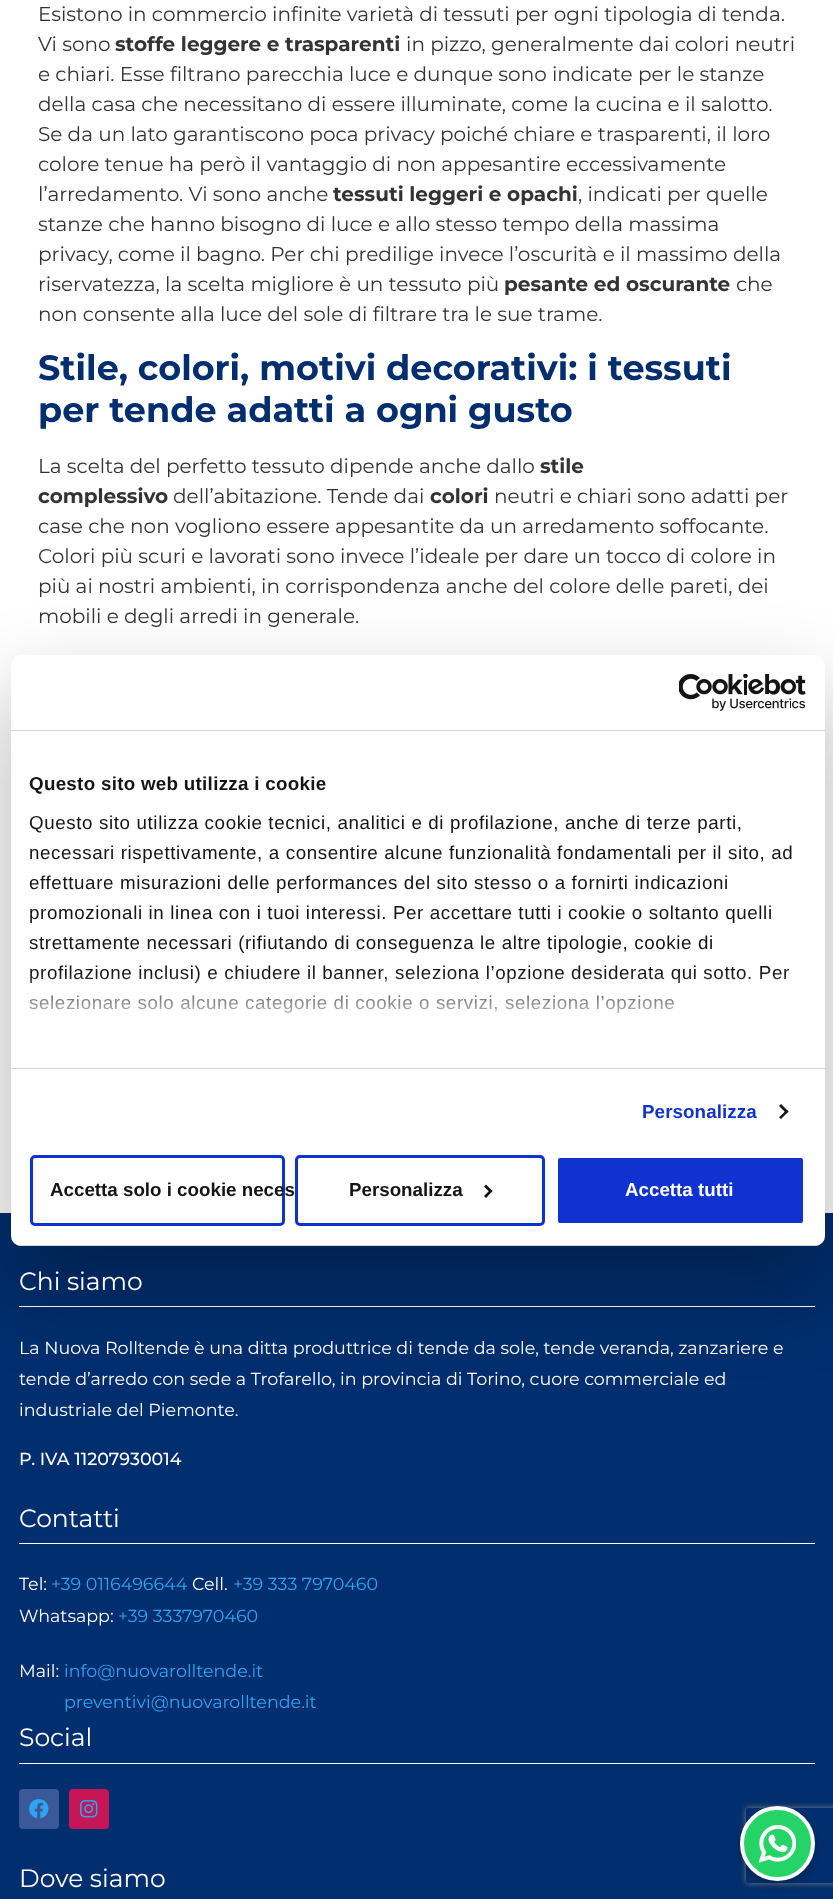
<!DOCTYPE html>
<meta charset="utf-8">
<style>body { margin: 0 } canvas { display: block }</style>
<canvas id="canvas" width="833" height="1899"></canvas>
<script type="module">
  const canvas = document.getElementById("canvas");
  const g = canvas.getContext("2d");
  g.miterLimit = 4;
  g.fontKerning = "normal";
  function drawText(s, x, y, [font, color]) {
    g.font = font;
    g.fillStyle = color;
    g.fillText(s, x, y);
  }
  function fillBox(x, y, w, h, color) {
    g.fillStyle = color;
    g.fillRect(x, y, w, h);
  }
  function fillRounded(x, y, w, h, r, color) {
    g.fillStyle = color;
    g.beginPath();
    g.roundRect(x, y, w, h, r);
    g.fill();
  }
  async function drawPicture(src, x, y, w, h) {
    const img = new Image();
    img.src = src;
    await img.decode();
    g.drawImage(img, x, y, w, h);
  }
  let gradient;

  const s1 = ["20px Montserrat", "#333333"];
  const s2 = ["bold 20px Montserrat", "#333333"];
  const s3 = ["bold 35px Montserrat", "#012E6E"];
  const s4 = ["bold 18.75px Liberation Sans", "#141414"];
  const s5 = ["18.75px Liberation Sans", "#141414"];
  const s6 = ["bold 18.75px Liberation Sans", "#1032CF"];
  const s7 = ["bold 18.75px Liberation Sans", "#FFFFFF"];
  const s8 = ["25px Montserrat", "#FFFFFF"];
  const s9 = ["17.5px Montserrat", "#FFFFFF"];
  const s10 = ["500 17.5px Montserrat", "#FFFFFF"];
  const s11 = ["17.5px Montserrat", "#2EA3F2"];

  fillBox(0, 0, 833, 1899, "#FFFFFF");
  drawText("Esistono in commercio infinite varietà di tessuti per ogni tipologia di tenda.", 38, 21, s1);
  drawText("Vi sono", 38, 51, s1);
  drawText("stoffe leggere e trasparenti", 115, 51, s2);
  drawText("in pizzo, generalmente dai colori neutri", 406, 51, s1);
  drawText("e chiari. Esse filtrano parecchia luce e dunque sono indicate per le stanze", 38, 81, s1);
  drawText("della casa che necessitano di essere illuminate, come la cucina e il salotto.", 38, 111, s1);
  drawText("Se da un lato garantiscono poca privacy poiché chiare e trasparenti, il loro", 38, 141, s1);
  drawText("colore tenue ha però il vantaggio di non appesantire eccessivamente", 38, 171, s1);
  drawText("l’arredamento. Vi sono anche", 38, 201, s1);
  drawText("tessuti leggeri e opachi", 333, 201, s2);
  drawText(", indicati per quelle", 578, 201, s1);
  drawText("stanze che hanno bisogno di luce e allo stesso tempo della massima", 38, 231, s1);
  drawText("privacy, come il bagno. Per chi predilige invece l’oscurità e il massimo della", 38, 261, s1);
  drawText("riservatezza, la scelta migliore è un tessuto più", 38, 291, s1);
  drawText("pesante ed oscurante", 504, 291, s2);
  drawText("che", 736, 291, s1);
  drawText("non consente alla luce del sole di filtrare tra le sue trame.", 38, 321, s1);
  drawText("Stile, colori, motivi decorativi: i tessuti", 38, 380, s3);
  drawText("per tende adatti a ogni gusto", 38, 422, s3);
  drawText("La scelta del perfetto tessuto dipende anche dallo", 38, 473, s1);
  drawText("stile", 540, 473, s2);
  drawText("complessivo", 38, 503, s2);
  drawText("dell’abitazione. Tende dai", 173, 503, s1);
  drawText("colori", 430, 503, s2);
  drawText("neutri e chiari sono adatti per", 494, 503, s1);
  drawText("case che non vogliono essere appesantite da un arredamento soffocante.", 38, 533, s1);
  drawText("Colori più scuri e lavorati sono invece l’ideale per dare un tocco di colore in", 38, 563, s1);
  drawText("più ai nostri ambienti, in corrispondenza anche del colore delle pareti, dei", 38, 593, s1);
  drawText("mobili e degli arredi in generale.", 38, 623, s1);
  fillBox(0, 1213, 833, 686, "#012E6E");
  fillBox(19, 1306, 796, 1, "#FFFFFF");
  g.fillStyle = "rgba(0, 0, 0, 0.3)";
  g.filter = "blur(42.5px)";
  g.beginPath();
  g.roundRect(11, 695, 814, 591, 10);
  g.fill();
  g.filter = "none";
  fillRounded(11, 655, 814, 591, 10, "#FFFFFF");
  fillBox(11, 730, 814, 1, "#D6D6D6");
  await drawPicture("pic1.png", 679, 674, 127, 37);
  fillBox(11, 1068, 814, 1, "#D6D6D6");
  g.letterSpacing = "0.3px";
  drawText("Questo sito web utilizza i cookie", 29, 790, s4);
  g.letterSpacing = "0.62px";
  drawText("Questo sito utilizza cookie tecnici, analitici e di profilazione, anche di terze parti,", 29, 829, s5);
  drawText("necessari rispettivamente, a consentire alcune funzionalità fondamentali per il sito, ad", 29, 859, s5);
  drawText("effettuare misurazioni delle performances del sito stesso o a fornirti indicazioni", 29, 889, s5);
  drawText("promozionali in linea con i tuoi interessi. Per accettare tutti i cookie o soltanto quelli", 29, 919, s5);
  drawText("strettamente necessari (rifiutando di conseguenza le altre tipologie, cookie di", 29, 949, s5);
  drawText("profilazione inclusi) e chiudere il banner, seleziona l’opzione desiderata qui sotto. Per", 29, 979, s5);
  drawText("selezionare solo alcune categorie di cookie o servizi, seleziona l’opzione", 29, 1009, s5);
  gradient = g.createLinearGradient(409, 1067, 409, 973);
  gradient.addColorStop(0, "#FFFFFF");
  gradient.addColorStop(0.5, "rgba(255, 255, 255, 0.8)");
  gradient.addColorStop(1, "rgba(255, 255, 255, 0)");
  g.fillStyle = gradient;
  g.fillRect(29, 974, 757, 39);
  g.letterSpacing = "0.1px";
  drawText("Personalizza", 642, 1118, s6);
  g.fillStyle = "#141414";
  g.beginPath();
  g.moveTo(781, 1104);
  g.lineTo(788.5, 1111.5);
  g.lineTo(786.5, 1113.5);
  g.lineTo(779, 1106);
  g.closePath();
  g.fill();
  g.beginPath();
  g.moveTo(786.5, 1110);
  g.lineTo(788.5, 1111.5);
  g.lineTo(781, 1119);
  g.lineTo(779, 1117.5);
  g.closePath();
  g.fill();
  g.save();
  g.beginPath();
  g.roundRect(11, 655, 814, 591, 10);
  g.clip();
  fillBox(11, 1245, 814, 1, "#D6D6D6");
  g.restore();
  g.beginPath();
  g.roundRect(31.5, 1156.5, 252, 68, 3.5);
  g.strokeStyle = "#1032CF";
  g.lineWidth = 3;
  g.stroke();
  g.letterSpacing = "0px";
  drawText("Accetta solo i cookie neces", 50, 1196, s4);
  g.beginPath();
  g.roundRect(296.5, 1156.5, 247, 68, 3.5);
  g.stroke();
  drawText("Personalizza", 349, 1196, s4);
  g.beginPath();
  g.moveTo(486, 1184.5);
  g.lineTo(492.5, 1191);
  g.lineTo(490.5, 1193);
  g.lineTo(484, 1186.5);
  g.closePath();
  g.fill();
  g.beginPath();
  g.moveTo(490.5, 1189.5);
  g.lineTo(492.5, 1191);
  g.lineTo(486, 1198);
  g.lineTo(484, 1196);
  g.closePath();
  g.fill();
  g.fillStyle = "#1032CF";
  g.beginPath();
  g.roundRect(556.5, 1156.5, 248, 68, 3.5);
  g.fill();
  g.strokeStyle = "#FFFFFF";
  g.stroke();
  drawText("Accetta tutti", 625, 1196, s7);
  drawText("Chi siamo", 19, 1290, s8);
  drawText("La Nuova Rolltende è una ditta produttrice di tende da sole, tende veranda, zanzariere e", 19, 1354, s9);
  drawText("tende d’arredo con sede a Trofarello, in provincia di Torino, cuore commerciale ed", 19, 1385, s9);
  drawText("industriale del Piemonte.", 19, 1416, s9);
  drawText("P. IVA 11207930014", 19, 1465, s10);
  drawText("Contatti", 19, 1527, s8);
  fillBox(19, 1543, 796, 1, "#FFFFFF");
  drawText("Tel:", 19, 1590, s9);
  drawText("+39 0116496644", 51, 1590, s11);
  drawText("Cell.", 192, 1590, s9);
  drawText("+39 333 7970460", 233, 1590, s11);
  drawText("Whatsapp:", 19, 1622, s9);
  drawText("+39 3337970460", 118, 1622, s11);
  drawText("Mail:", 19, 1677, s9);
  drawText("info@nuovarolltende.it", 64, 1677, s11);
  drawText("preventivi@nuovarolltende.it", 64, 1708, s11);
  drawText("Social", 19, 1746, s8);
  fillBox(19, 1763, 796, 1, "#FFFFFF");
  fillRounded(19, 1789, 40, 40, 4, "#3B5998");
  await drawPicture("pic2.png", 29, 1799, 20, 20);
  fillRounded(69, 1789, 40, 40, 4, "#C61656");
  await drawPicture("pic3.png", 80, 1800, 18, 18);
  drawText("Dove siamo", 19, 1887, s8);
  g.fillStyle = "rgba(0, 0, 0, 0.2)";
  g.filter = "blur(4px)";
  g.beginPath();
  g.roundRect(740, 1810, 75, 75, 37.5);
  g.fill();
  g.filter = "none";
  g.save();
  g.beginPath();
  g.moveTo(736, 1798);
  g.lineTo(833, 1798);
  g.lineTo(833, 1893);
  g.lineTo(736, 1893);
  g.closePath();
  g.moveTo(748.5, 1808);
  g.lineTo(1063.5, 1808);
  g.bezierCurveTo(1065, 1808, 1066, 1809, 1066, 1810.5);
  g.lineTo(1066, 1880.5);
  g.bezierCurveTo(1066, 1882, 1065, 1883, 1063.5, 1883);
  g.lineTo(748.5, 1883);
  g.bezierCurveTo(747, 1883, 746, 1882, 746, 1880.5);
  g.lineTo(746, 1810.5);
  g.bezierCurveTo(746, 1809, 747, 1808, 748.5, 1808);
  g.closePath();
  g.clip("evenodd");
  g.fillStyle = "#808080";
  g.filter = "blur(3px)";
  g.beginPath();
  g.roundRect(746, 1808, 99, 75, 2.5);
  g.fill();
  g.filter = "none";
  g.restore();
  g.fillStyle = "#25D366";
  g.beginPath();
  g.arc(777.5, 1843.5, 35.5, 0, Math.PI * 2);
  g.fill();
  g.lineWidth = 4;
  g.stroke();
  await drawPicture("pic4.png", 759, 1825, 37, 38);
</script>
